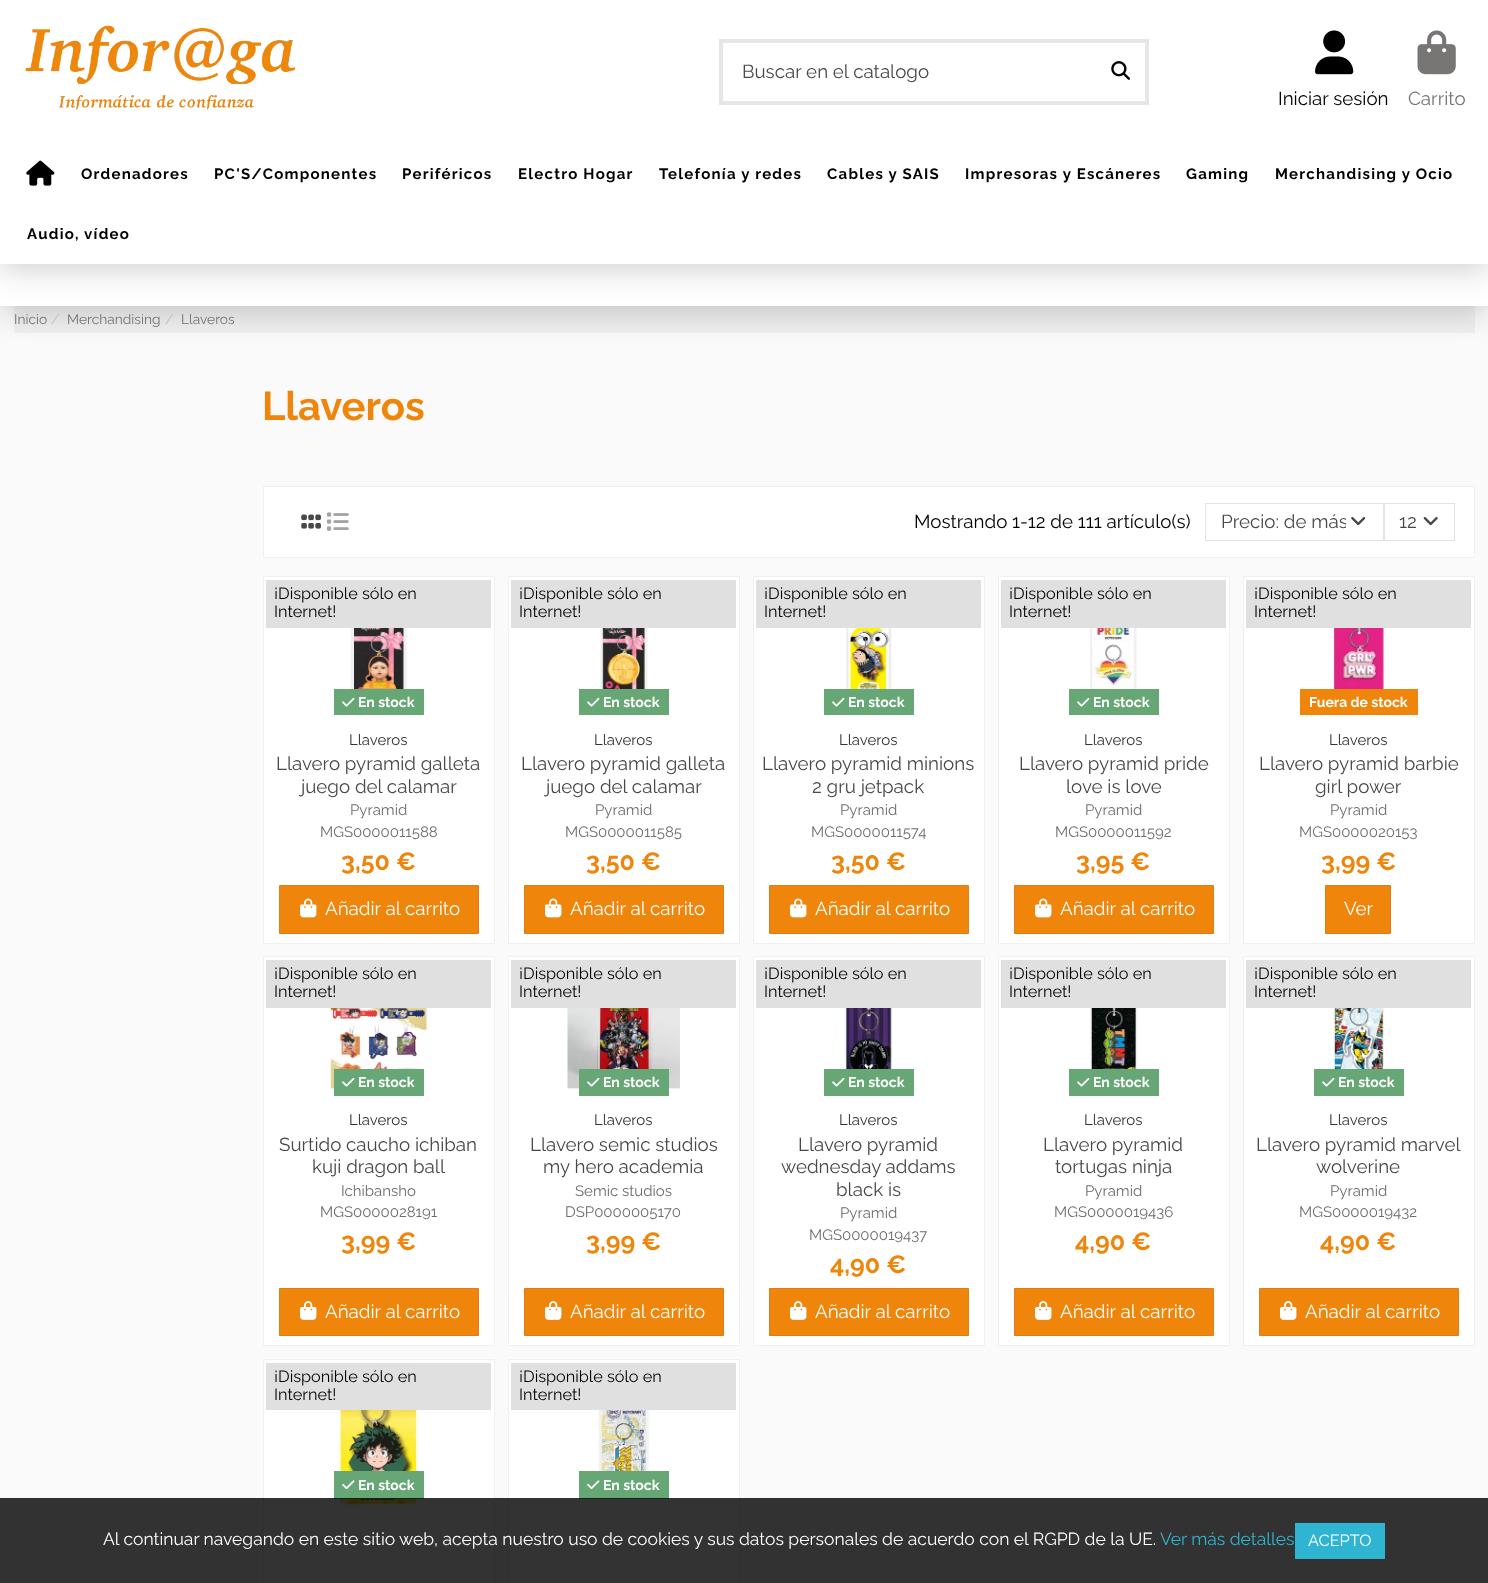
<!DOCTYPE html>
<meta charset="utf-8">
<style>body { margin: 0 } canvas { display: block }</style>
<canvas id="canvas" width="1488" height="1583"></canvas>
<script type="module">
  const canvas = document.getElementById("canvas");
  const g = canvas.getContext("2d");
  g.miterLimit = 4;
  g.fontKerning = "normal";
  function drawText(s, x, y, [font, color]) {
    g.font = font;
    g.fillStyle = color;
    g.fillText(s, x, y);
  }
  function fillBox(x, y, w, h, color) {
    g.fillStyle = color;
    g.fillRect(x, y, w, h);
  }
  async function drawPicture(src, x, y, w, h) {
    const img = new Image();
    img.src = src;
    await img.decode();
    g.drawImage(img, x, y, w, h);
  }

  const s1 = ["18.75px Raleway", "#484848"];
  const s2 = ["18.75px Raleway", "#000000"];
  const s3 = ["18.75px Raleway", "#767373"];
  const s4 = ["bold 15px Raleway", "#000000"];
  const s5 = ["13.75px Raleway", "#767373"];
  const s6 = ["13.75px Raleway", "#BFBEBE"];
  const s7 = ["bold 40px Raleway", "#EF860B"];
  const s8 = ["16.25px Raleway", "#000000"];
  const s9 = ["bold 14px Raleway", "#FFFFFF"];
  const s10 = ["15px Raleway", "#333333"];
  const s11 = ["15px Raleway", "#6D6D6D"];
  const s12 = ["bold 25px Raleway", "#EF860B"];
  const s13 = ["18.75px Raleway", "#FFFFFF"];
  const s14 = ["17.5px Raleway", "#FFFFFF"];
  const s15 = ["17.5px Raleway", "#2FB5D2"];
  const s16 = ["16.25px Raleway", "#FFFFFF"];

  fillBox(0, 0, 1488, 1583, "#FAFAFA");
  fillBox(14, 306, 1461, 27, "#F0F0F0");
  g.fillStyle = "rgba(0, 0, 0, 0.18)";
  g.filter = "blur(15.5px)";
  g.beginPath();
  g.rect(0, 6, 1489, 307);
  g.fill();
  g.filter = "none";
  fillBox(0, 264, 1488, 42, "#FFFFFF");
  g.fillStyle = "rgba(0, 0, 0, 0.18)";
  g.filter = "blur(15.5px)";
  g.beginPath();
  g.rect(0, 6, 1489, 264);
  g.fill();
  g.filter = "none";
  fillBox(0, 0, 1488, 264, "#FFFFFF");
  await drawPicture("pic1.png", 25, 25, 271, 85);
  g.strokeStyle = "#E6E6E6";
  g.lineWidth = 4;
  g.strokeRect(721, 41, 426, 62);
  drawText("Buscar en el catalogo", 742, 78, s1);
  await drawPicture("pic2.png", 1111, 61, 19, 19);
  await drawPicture("pic3.png", 1315, 30, 39, 45);
  drawText("Iniciar sesión", 1278, 105, s2);
  await drawPicture("pic4.png", 1417, 30, 39, 45);
  drawText("Carrito", 1408, 105, s3);
  await drawPicture("pic5.png", 26, 160, 29, 26);
  g.letterSpacing = "1.25px";
  drawText("Ordenadores", 81, 179, s4);
  drawText("PC'S/Componentes", 214, 179, s4);
  drawText("Periféricos", 402, 179, s4);
  drawText("Electro Hogar", 518, 179, s4);
  drawText("Telefonía y redes", 659, 179, s4);
  drawText("Cables y SAIS", 827, 179, s4);
  drawText("Impresoras y Escáneres", 965, 179, s4);
  drawText("Gaming", 1186, 179, s4);
  drawText("Merchandising y Ocio", 1275, 179, s4);
  drawText("Audio, vídeo", 27, 239, s4);
  g.letterSpacing = "0px";
  drawText("Inicio", 14, 324, s5);
  drawText("/", 51, 324, s6);
  drawText("Merchandising", 67, 324, s5);
  drawText("/", 165, 324, s6);
  drawText("Llaveros", 181, 324, s5);
  drawText("Llaveros", 262, 420, s7);
  g.fillStyle = "#FFFFFF";
  g.beginPath();
  g.rect(263.5, 486.5, 1211, 71);
  g.fill();
  g.strokeStyle = "#F0F0F0";
  g.lineWidth = 1;
  g.stroke();
  await drawPicture("pic6.png", 301, 514, 20, 15);
  await drawPicture("pic7.png", 326, 512, 23, 19);
  drawText("Mostrando 1-12 de 111 artículo(s)", 914, 528, s2);
  g.strokeStyle = "#E3E3E3";
  g.strokeRect(1205.5, 503.5, 178, 37);
  g.save();
  g.beginPath();
  g.rect(1221, 508, 125, 28);
  g.clip();
  drawText("Precio: de más", 1221, 528, s1);
  g.restore();
  await drawPicture("pic8.png", 1351, 517, 15, 9);
  g.strokeRect(1384.5, 503.5, 70, 37);
  drawText("12", 1399, 528, s1);
  await drawPicture("pic9.png", 1423, 517, 15, 9);
  g.fillStyle = "#FFFFFF";
  g.beginPath();
  g.rect(263.5, 576.5, 231, 367);
  g.fill();
  g.strokeStyle = "#F0F0F0";
  g.stroke();
  fillBox(266, 580, 225, 48, "#E0E0E0");
  drawText("¡Disponible sólo en", 274, 599, s8);
  drawText("Internet!", 274, 617, s8);
  await drawPicture("pic10.png", 350, 628, 58, 61);
  fillBox(334, 689, 90, 26, "#67A675");
  await drawPicture("pic11.png", 342, 697, 13, 10);
  drawText("En stock", 358, 707, s9);
  drawText("Llaveros", 349, 745, s10);
  drawText("Llavero pyramid galleta", 276, 770, s1);
  drawText("juego del calamar", 301, 793, s1);
  drawText("Pyramid", 350, 815, s11);
  drawText("MGS0000011588", 320, 837, s11);
  drawText("3,50 €", 341, 870, s12);
  g.beginPath();
  g.rect(279.5, 885.5, 199, 48);
  g.fill();
  g.strokeStyle = "#DD7F15";
  g.stroke();
  await drawPicture("pic12.png", 300, 898, 17, 20);
  drawText("Añadir al carrito", 325, 915, s13);
  g.beginPath();
  g.rect(508.5, 576.5, 231, 367);
  g.fill();
  g.strokeStyle = "#F0F0F0";
  g.stroke();
  fillBox(511, 580, 225, 48, "#E0E0E0");
  drawText("¡Disponible sólo en", 519, 599, s8);
  drawText("Internet!", 519, 617, s8);
  await drawPicture("pic13.png", 600, 628, 48, 61);
  fillBox(579, 689, 90, 26, "#67A675");
  await drawPicture("pic11.png", 587, 697, 13, 10);
  drawText("En stock", 603, 707, s9);
  drawText("Llaveros", 594, 745, s10);
  drawText("Llavero pyramid galleta", 521, 770, s1);
  drawText("juego del calamar", 546, 793, s1);
  drawText("Pyramid", 595, 815, s11);
  drawText("MGS0000011585", 565, 837, s11);
  drawText("3,50 €", 586, 870, s12);
  g.beginPath();
  g.rect(524.5, 885.5, 199, 48);
  g.fill();
  g.strokeStyle = "#DD7F15";
  g.stroke();
  await drawPicture("pic12.png", 545, 898, 17, 20);
  drawText("Añadir al carrito", 570, 915, s13);
  g.beginPath();
  g.rect(753.5, 576.5, 231, 367);
  g.fill();
  g.strokeStyle = "#F0F0F0";
  g.stroke();
  fillBox(756, 580, 225, 48, "#E0E0E0");
  drawText("¡Disponible sólo en", 764, 599, s8);
  drawText("Internet!", 764, 617, s8);
  await drawPicture("pic14.png", 846, 628, 46, 61);
  fillBox(824, 689, 90, 26, "#67A675");
  await drawPicture("pic11.png", 832, 697, 13, 10);
  drawText("En stock", 848, 707, s9);
  drawText("Llaveros", 839, 745, s10);
  drawText("Llavero pyramid minions", 762, 770, s1);
  drawText("2 gru jetpack", 812, 793, s1);
  drawText("Pyramid", 840, 815, s11);
  drawText("MGS0000011574", 811, 837, s11);
  drawText("3,50 €", 831, 870, s12);
  g.beginPath();
  g.rect(769.5, 885.5, 199, 48);
  g.fill();
  g.strokeStyle = "#DD7F15";
  g.stroke();
  await drawPicture("pic12.png", 790, 898, 17, 20);
  drawText("Añadir al carrito", 815, 915, s13);
  g.beginPath();
  g.rect(998.5, 576.5, 231, 367);
  g.fill();
  g.strokeStyle = "#F0F0F0";
  g.stroke();
  fillBox(1001, 580, 225, 48, "#E0E0E0");
  drawText("¡Disponible sólo en", 1009, 599, s8);
  drawText("Internet!", 1009, 617, s8);
  await drawPicture("pic15.png", 1090, 628, 47, 61);
  fillBox(1069, 689, 90, 26, "#67A675");
  await drawPicture("pic11.png", 1077, 697, 13, 10);
  drawText("En stock", 1093, 707, s9);
  drawText("Llaveros", 1084, 745, s10);
  drawText("Llavero pyramid pride", 1019, 770, s1);
  drawText("love is love", 1066, 793, s1);
  drawText("Pyramid", 1085, 815, s11);
  drawText("MGS0000011592", 1055, 837, s11);
  drawText("3,95 €", 1076, 870, s12);
  g.beginPath();
  g.rect(1014.5, 885.5, 199, 48);
  g.fill();
  g.strokeStyle = "#DD7F15";
  g.stroke();
  await drawPicture("pic12.png", 1035, 898, 17, 20);
  drawText("Añadir al carrito", 1060, 915, s13);
  g.beginPath();
  g.rect(1243.5, 576.5, 231, 367);
  g.fill();
  g.strokeStyle = "#F0F0F0";
  g.stroke();
  fillBox(1246, 580, 225, 48, "#E0E0E0");
  drawText("¡Disponible sólo en", 1254, 599, s8);
  drawText("Internet!", 1254, 617, s8);
  await drawPicture("pic16.png", 1333, 628, 54, 61);
  fillBox(1300, 689, 118, 26, "#EF860B");
  drawText("Fuera de stock", 1309, 707, s9);
  drawText("Llaveros", 1329, 745, s10);
  drawText("Llavero pyramid barbie", 1259, 770, s1);
  drawText("girl power", 1315, 793, s1);
  drawText("Pyramid", 1330, 815, s11);
  drawText("MGS0000020153", 1299, 837, s11);
  drawText("3,99 €", 1321, 870, s12);
  g.beginPath();
  g.rect(1325.5, 885.5, 65, 48);
  g.fill();
  g.strokeStyle = "#DD7F15";
  g.stroke();
  drawText("Ver", 1344, 915, s13);
  g.beginPath();
  g.rect(263.5, 956.5, 231, 389);
  g.fill();
  g.strokeStyle = "#F0F0F0";
  g.stroke();
  fillBox(266, 960, 225, 48, "#E0E0E0");
  drawText("¡Disponible sólo en", 274, 979, s8);
  drawText("Internet!", 274, 997, s8);
  await drawPicture("pic17.png", 330, 1008, 100, 82);
  fillBox(334, 1069, 90, 27, "#67A675");
  await drawPicture("pic11.png", 342, 1077, 13, 10);
  drawText("En stock", 358, 1087, s9);
  drawText("Llaveros", 349, 1125, s10);
  drawText("Surtido caucho ichiban", 279, 1151, s1);
  drawText("kuji dragon ball", 312, 1173, s1);
  drawText("Ichibansho", 341, 1196, s11);
  drawText("MGS0000028191", 320, 1217, s11);
  drawText("3,99 €", 341, 1250, s12);
  g.beginPath();
  g.rect(279.5, 1288.5, 199, 47);
  g.fill();
  g.strokeStyle = "#DD7F15";
  g.stroke();
  await drawPicture("pic18.png", 300, 1301, 17, 19);
  drawText("Añadir al carrito", 325, 1318, s13);
  g.beginPath();
  g.rect(508.5, 956.5, 231, 389);
  g.fill();
  g.strokeStyle = "#F0F0F0";
  g.stroke();
  fillBox(511, 960, 225, 48, "#E0E0E0");
  drawText("¡Disponible sólo en", 519, 979, s8);
  drawText("Internet!", 519, 997, s8);
  await drawPicture("pic19.png", 567, 1008, 113, 81);
  fillBox(579, 1069, 90, 27, "#67A675");
  await drawPicture("pic11.png", 587, 1077, 13, 10);
  drawText("En stock", 603, 1087, s9);
  drawText("Llaveros", 594, 1125, s10);
  drawText("Llavero semic studios", 530, 1151, s1);
  drawText("my hero academia", 543, 1173, s1);
  drawText("Semic studios", 575, 1196, s11);
  drawText("DSP0000005170", 565, 1217, s11);
  drawText("3,99 €", 586, 1250, s12);
  g.beginPath();
  g.rect(524.5, 1288.5, 199, 47);
  g.fill();
  g.strokeStyle = "#DD7F15";
  g.stroke();
  await drawPicture("pic18.png", 545, 1301, 17, 19);
  drawText("Añadir al carrito", 570, 1318, s13);
  g.beginPath();
  g.rect(753.5, 956.5, 231, 389);
  g.fill();
  g.strokeStyle = "#F0F0F0";
  g.stroke();
  fillBox(756, 960, 225, 48, "#E0E0E0");
  drawText("¡Disponible sólo en", 764, 979, s8);
  drawText("Internet!", 764, 997, s8);
  await drawPicture("pic20.png", 843, 1008, 50, 61);
  fillBox(824, 1069, 90, 27, "#67A675");
  await drawPicture("pic11.png", 832, 1077, 13, 10);
  drawText("En stock", 848, 1087, s9);
  drawText("Llaveros", 839, 1125, s10);
  drawText("Llavero pyramid", 798, 1151, s1);
  drawText("wednesday addams", 781, 1173, s1);
  drawText("black is", 836, 1196, s1);
  drawText("Pyramid", 840, 1218, s11);
  drawText("MGS0000019437", 809, 1240, s11);
  drawText("4,90 €", 830, 1273, s12);
  g.beginPath();
  g.rect(769.5, 1288.5, 199, 47);
  g.fill();
  g.strokeStyle = "#DD7F15";
  g.stroke();
  await drawPicture("pic18.png", 790, 1301, 17, 19);
  drawText("Añadir al carrito", 815, 1318, s13);
  g.beginPath();
  g.rect(998.5, 956.5, 231, 389);
  g.fill();
  g.strokeStyle = "#F0F0F0";
  g.stroke();
  fillBox(1001, 960, 225, 48, "#E0E0E0");
  drawText("¡Disponible sólo en", 1009, 979, s8);
  drawText("Internet!", 1009, 997, s8);
  await drawPicture("pic21.png", 1090, 1008, 48, 61);
  fillBox(1069, 1069, 90, 27, "#67A675");
  await drawPicture("pic11.png", 1077, 1077, 13, 10);
  drawText("En stock", 1093, 1087, s9);
  drawText("Llaveros", 1084, 1125, s10);
  drawText("Llavero pyramid", 1043, 1151, s1);
  drawText("tortugas ninja", 1055, 1173, s1);
  drawText("Pyramid", 1085, 1196, s11);
  drawText("MGS0000019436", 1054, 1217, s11);
  drawText("4,90 €", 1075, 1250, s12);
  g.beginPath();
  g.rect(1014.5, 1288.5, 199, 47);
  g.fill();
  g.strokeStyle = "#DD7F15";
  g.stroke();
  await drawPicture("pic18.png", 1035, 1301, 17, 19);
  drawText("Añadir al carrito", 1060, 1318, s13);
  g.beginPath();
  g.rect(1243.5, 956.5, 231, 389);
  g.fill();
  g.strokeStyle = "#F0F0F0";
  g.stroke();
  fillBox(1246, 960, 225, 48, "#E0E0E0");
  drawText("¡Disponible sólo en", 1254, 979, s8);
  drawText("Internet!", 1254, 997, s8);
  await drawPicture("pic22.png", 1332, 1008, 54, 61);
  fillBox(1314, 1069, 90, 27, "#67A675");
  await drawPicture("pic11.png", 1322, 1077, 13, 10);
  drawText("En stock", 1338, 1087, s9);
  drawText("Llaveros", 1329, 1125, s10);
  drawText("Llavero pyramid marvel", 1256, 1151, s1);
  drawText("wolverine", 1316, 1173, s1);
  drawText("Pyramid", 1330, 1196, s11);
  drawText("MGS0000019432", 1299, 1217, s11);
  drawText("4,90 €", 1320, 1250, s12);
  g.beginPath();
  g.rect(1259.5, 1288.5, 199, 47);
  g.fill();
  g.strokeStyle = "#DD7F15";
  g.stroke();
  await drawPicture("pic18.png", 1280, 1301, 17, 19);
  drawText("Añadir al carrito", 1305, 1318, s13);
  g.beginPath();
  g.rect(263.5, 1359.5, 231, 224);
  g.fill();
  g.strokeStyle = "#F0F0F0";
  g.stroke();
  await drawPicture("pic23.png", 338, 1362, 81, 146);
  fillBox(266, 1363, 225, 47, "#E0E0E0");
  drawText("¡Disponible sólo en", 274, 1382, s8);
  drawText("Internet!", 274, 1400, s8);
  fillBox(334, 1471, 90, 28, "#67A675");
  await drawPicture("pic24.png", 342, 1480, 13, 10);
  drawText("En stock", 358, 1490, s9);
  g.beginPath();
  g.rect(508.5, 1359.5, 231, 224);
  g.fill();
  g.stroke();
  fillBox(511, 1363, 225, 47, "#E0E0E0");
  drawText("¡Disponible sólo en", 519, 1382, s8);
  drawText("Internet!", 519, 1400, s8);
  await drawPicture("pic25.png", 598, 1410, 52, 61);
  fillBox(579, 1471, 90, 28, "#67A675");
  await drawPicture("pic24.png", 587, 1480, 13, 10);
  drawText("En stock", 603, 1490, s9);
  fillBox(0, 1498, 1488, 85, "rgba(0, 0, 0, 0.8)");
  drawText("Al continuar navegando en este sitio web, acepta nuestro uso de cookies y sus datos personales de acuerdo con el RGPD de la UE.", 103, 1545, s14);
  drawText("Ver más detalles", 1160, 1545, s15);
  fillBox(1295, 1523, 90, 36, "#2FB5D2");
  drawText("ACEPTO", 1308, 1546, s16);
</script>
